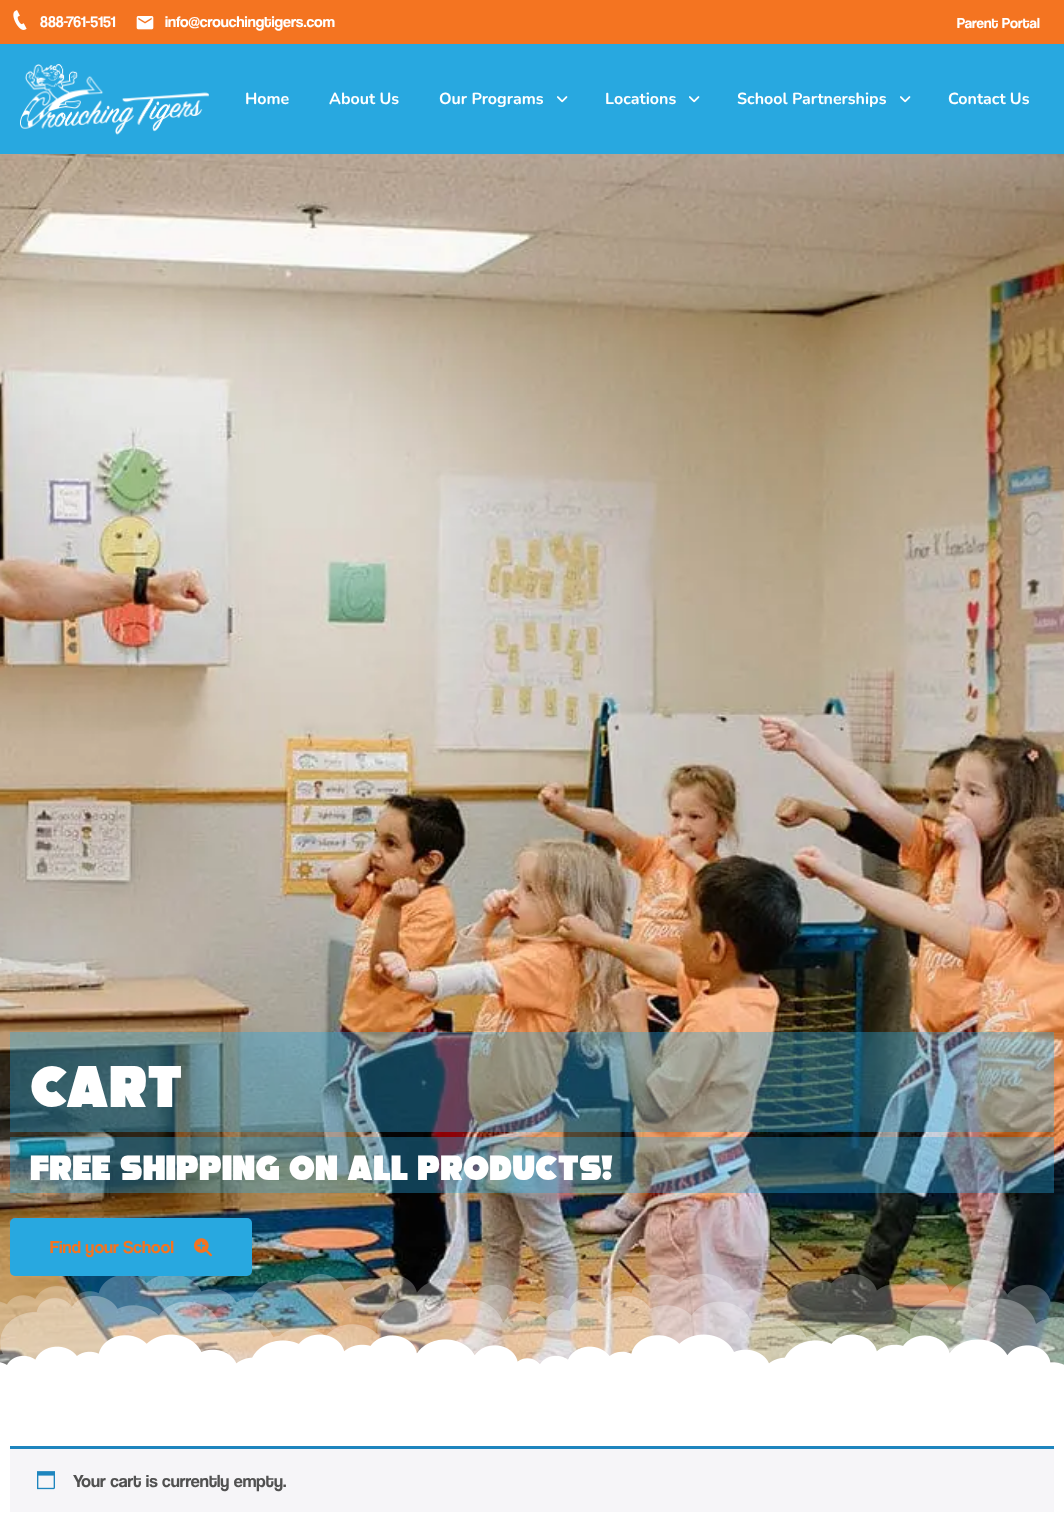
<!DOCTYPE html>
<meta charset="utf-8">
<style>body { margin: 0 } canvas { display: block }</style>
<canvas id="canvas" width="1064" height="1527"></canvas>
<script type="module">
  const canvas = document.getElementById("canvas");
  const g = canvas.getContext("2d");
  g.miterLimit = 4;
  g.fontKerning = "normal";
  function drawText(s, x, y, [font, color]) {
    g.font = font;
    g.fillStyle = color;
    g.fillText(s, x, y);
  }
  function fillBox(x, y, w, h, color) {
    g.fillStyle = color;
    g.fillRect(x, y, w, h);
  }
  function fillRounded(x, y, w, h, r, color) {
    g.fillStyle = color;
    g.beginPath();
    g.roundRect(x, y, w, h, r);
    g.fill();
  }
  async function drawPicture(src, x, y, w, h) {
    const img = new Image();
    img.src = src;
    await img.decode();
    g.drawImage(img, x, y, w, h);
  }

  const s1 = ["16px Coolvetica", "#FFFFFF"];
  const s2 = ["15px Coolvetica", "#FFFFFF"];
  const s3 = ["bold 16px Nunito", "#FFFFFF"];
  const s4 = ["900 60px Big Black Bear", "#FFFFFF"];
  const s5 = ["900 36px Big Black Bear", "#FFFFFF"];
  const s6 = ["18px Coolvetica", "#F47421"];
  const s7 = ["18px Coolvetica", "#515151"];

  fillBox(0, 0, 1064, 1527, "#FFFFFF");
  fillBox(0, 0, 1064, 44, "#F47421");
  await drawPicture("pic1.png", 13, 10, 14, 20);
  drawText("888-761-5151", 40, 27, s1);
  await drawPicture("pic2.png", 136, 16, 18, 14);
  drawText("info@crouchingtigers.com", 165, 27, s1);
  drawText("Parent Portal", 957, 28, s2);
  fillBox(0, 44, 1064, 110, "#28A8E0");
  await drawPicture("pic3.png", 20, 64, 189, 71);
  drawText("Home", 245, 104, s3);
  drawText("About Us", 329, 104, s3);
  drawText("Our Programs", 439, 104, s3);
  await drawPicture("pic4.png", 557, 96, 11, 7);
  drawText("Locations", 605, 104, s3);
  await drawPicture("pic4.png", 689, 96, 11, 7);
  drawText("School Partnerships", 737, 104, s3);
  await drawPicture("pic4.png", 900, 96, 11, 7);
  drawText("Contact Us", 948, 104, s3);
  await drawPicture("pic5.png", 0, 154, 1064, 1211);
  fillBox(10, 1032, 1044, 100, "rgba(40, 168, 224, 0.37)");
  drawText("Cart", 30, 1107, s4);
  fillBox(10, 1137, 1044, 56, "rgba(40, 168, 224, 0.37)");
  drawText("Free shipping on all products!", 30, 1180, s5);
  await drawPicture("pic7.png", 0, 1274, 1064, 102);
  fillRounded(10, 1218, 242, 58, 5, "#28A8E0");
  drawText("Find your School", 50, 1253, s6);
  await drawPicture("pic6.png", 194, 1238, 18, 19);
  fillBox(10, 1449, 1044, 63, "#F6F5F8");
  fillBox(10, 1446, 1044, 3, "#1E85BE");
  await drawPicture("pic8.png", 37, 1471, 18, 19);
  drawText("Your cart is currently empty.", 73, 1487, s7);
</script>
